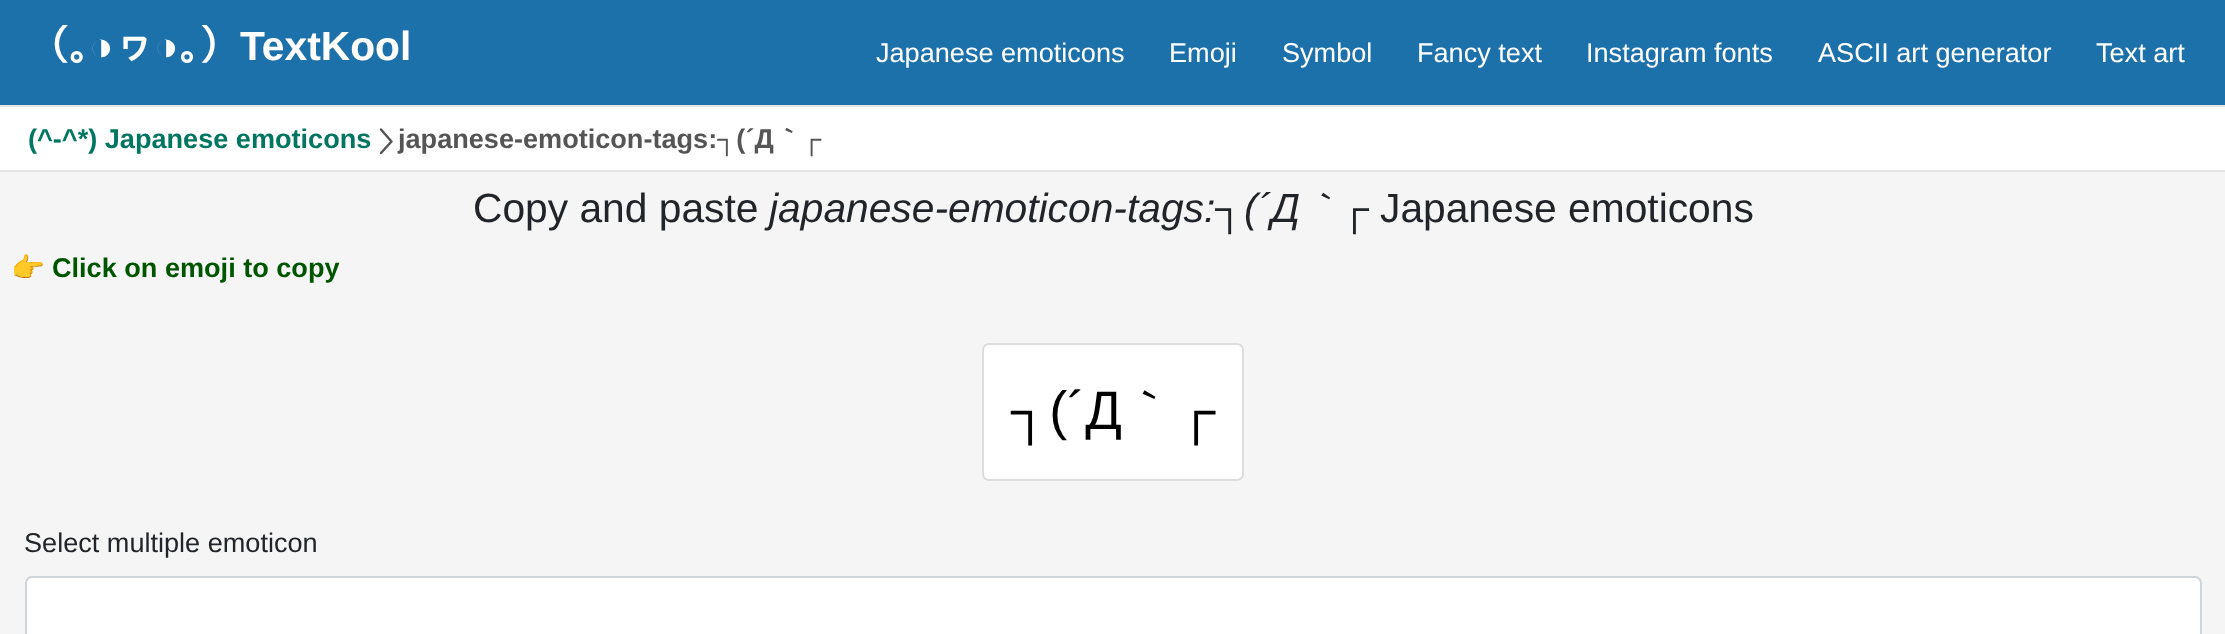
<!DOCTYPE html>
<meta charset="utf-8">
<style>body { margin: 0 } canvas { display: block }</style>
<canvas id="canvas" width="2225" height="634"></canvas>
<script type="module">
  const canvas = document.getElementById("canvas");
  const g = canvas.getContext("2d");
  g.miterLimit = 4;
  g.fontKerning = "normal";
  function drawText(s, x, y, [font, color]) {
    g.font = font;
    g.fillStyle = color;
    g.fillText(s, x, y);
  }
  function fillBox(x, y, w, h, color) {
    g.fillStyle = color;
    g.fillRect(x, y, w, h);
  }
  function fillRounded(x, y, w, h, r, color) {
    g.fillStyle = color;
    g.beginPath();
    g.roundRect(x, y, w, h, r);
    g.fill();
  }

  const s1 = ["bold 40.75px IPAGothic", "#FFFFFF"];
  const s2 = ["bold 40.75px Liberation Sans", "#FFFFFF"];
  const s3 = ["27.1px Liberation Sans", "#FFFFFF"];
  const s4 = ["bold 27.1px Liberation Sans", "#027661"];
  const s5 = ["bold 27.1px Liberation Sans", "#555555"];
  const s6 = ["bold 27.1px WenQuanYi Zen Hei", "#555555"];
  const s7 = ["40.75px Liberation Sans", "#212529"];
  const s8 = ["italic 40.75px Liberation Sans", "#212529"];
  const s9 = ["italic 500 40.75px WenQuanYi Zen Hei", "#212529"];
  const s10 = ["bold 27.1px Noto Color Emoji", "#005500"];
  const s11 = ["bold 27.1px Liberation Sans", "#005500"];
  const s12 = ["54px Liberation Sans", "#000000"];
  const s13 = ["500 54px WenQuanYi Zen Hei", "#000000"];
  const s14 = ["27.1px Liberation Sans", "#212529"];

  fillBox(0, 0, 2225, 634, "#F5F5F5");
  fillBox(0, 0, 2225, 105, "#1D71AB");
  fillBox(0, 105, 2225, 2, "#E5E5E5");
  drawText("（｡", 28, 60, s1);
  drawText("◑", 89, 60, s2);
  drawText("ヮ", 114, 60, s1);
  drawText("◑", 154, 60, s2);
  drawText("｡）", 179, 60, s1);
  drawText("TextKool", 240, 60, s2);
  drawText("Japanese emoticons", 876, 62, s3);
  drawText("Emoji", 1169, 62, s3);
  drawText("Symbol", 1282, 62, s3);
  drawText("Fancy text", 1417, 62, s3);
  drawText("Instagram fonts", 1586, 62, s3);
  drawText("ASCII art generator", 1818, 62, s3);
  drawText("Text art", 2096, 62, s3);
  fillBox(0, 107, 2225, 63, "#FFFFFF");
  fillBox(0, 170, 2225, 2, "#E5E5E5");
  drawText("(^-^*) Japanese emoticons", 28, 148, s4);
  g.beginPath();
  g.moveTo(381, 153);
  g.lineTo(391.5, 141.5);
  g.lineTo(381, 129.5);
  g.strokeStyle = "#555555";
  g.lineWidth = 2.5;
  g.lineCap = "round";
  g.lineJoin = "round";
  g.stroke();
  drawText("japanese-emoticon-tags:┐(´Д", 398, 148, s5);
  drawText("｀", 775, 148, s6);
  drawText("┌", 802, 148, s5);
  drawText("Copy and paste", 473, 222, s7);
  drawText("japanese-emoticon-tags:┐(´Д", 769, 222, s8);
  drawText("｀", 1299, 222, s9);
  drawText("┌", 1340, 222, s8);
  drawText("Japanese emoticons", 1380, 222, s7);
  drawText("👉", 11, 277, s10);
  drawText("Click on emoji to copy", 52, 277, s11);
  g.fillStyle = "#FFFFFF";
  g.beginPath();
  g.roundRect(983, 344, 260, 136, 6);
  g.fill();
  g.strokeStyle = "#DDDDDD";
  g.lineWidth = 2;
  g.lineJoin = "miter";
  g.stroke();
  drawText("┐(´Д", 1011, 429, s12);
  drawText("｀", 1122, 429, s13);
  drawText("┌", 1177, 429, s12);
  drawText("Select multiple emoticon", 24, 552, s14);
  fillRounded(26, 578, 2174, 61, 5, "#FFFFFF");
  g.beginPath();
  g.roundRect(26, 577, 2175, 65, 6);
  g.strokeStyle = "#CED4DA";
  g.stroke();
</script>
